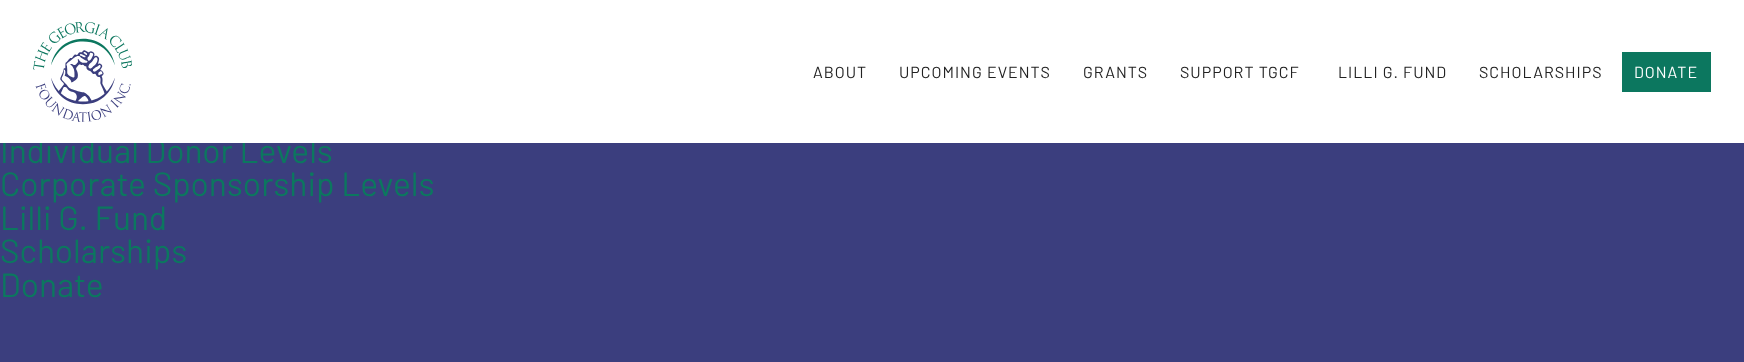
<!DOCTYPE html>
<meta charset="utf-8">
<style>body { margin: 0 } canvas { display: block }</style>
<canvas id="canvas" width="1744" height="362"></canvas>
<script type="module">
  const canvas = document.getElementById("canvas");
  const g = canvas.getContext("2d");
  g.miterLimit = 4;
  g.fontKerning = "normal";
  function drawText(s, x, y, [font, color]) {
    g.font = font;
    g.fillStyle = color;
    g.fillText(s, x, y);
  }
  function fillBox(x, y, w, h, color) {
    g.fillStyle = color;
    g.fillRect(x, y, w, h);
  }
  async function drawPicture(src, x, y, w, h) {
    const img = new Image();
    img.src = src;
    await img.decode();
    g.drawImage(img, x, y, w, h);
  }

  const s1 = ["33.5px Barlow", "#0C775F"];
  const s2 = ["16px Barlow", "#222222"];
  const s3 = ["16px Barlow", "#FFFFFF"];

  fillBox(0, 0, 1744, 362, "#3B3E7E");
  drawText("Individual Donor Levels", 0, 163, s1);
  fillBox(0, 0, 1744, 143, "#FFFFFF");
  await drawPicture("pic1.png", 33, 22, 99, 100);
  g.letterSpacing = "1px";
  drawText("ABOUT", 813, 78, s2);
  drawText("UPCOMING EVENTS", 899, 78, s2);
  drawText("GRANTS", 1083, 78, s2);
  drawText("SUPPORT TGCF", 1180, 78, s2);
  drawText("LILLI G. FUND", 1338, 78, s2);
  drawText("SCHOLARSHIPS", 1479, 78, s2);
  fillBox(1622, 52, 89, 40, "#0C775F");
  drawText("DONATE", 1634, 78, s3);
  g.letterSpacing = "0px";
  drawText("Corporate Sponsorship Levels", 0, 196, s1);
  drawText("Lilli G. Fund", 0, 230, s1);
  drawText("Scholarships", 0, 263, s1);
  drawText("Donate", 0, 297, s1);
</script>
